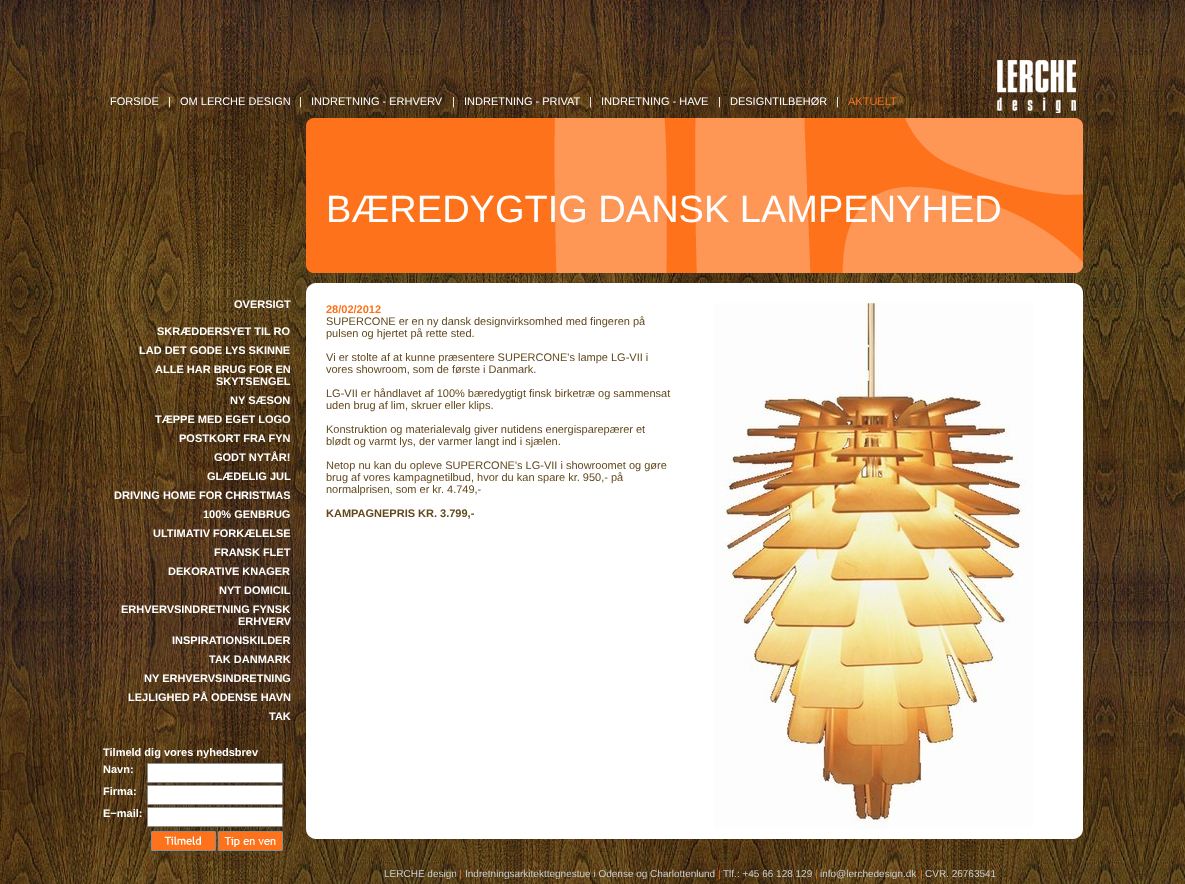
<!DOCTYPE html>
<meta charset="utf-8">
<style>body { margin: 0 } canvas { display: block }</style>
<canvas id="canvas" width="1185" height="884"></canvas>
<script type="module">
  const canvas = document.getElementById("canvas");
  const g = canvas.getContext("2d");
  g.miterLimit = 4;
  g.fontKerning = "normal";
  function drawText(s, x, y, [font, color]) {
    g.font = font;
    g.fillStyle = color;
    g.fillText(s, x, y);
  }
  function fillBox(x, y, w, h, color) {
    g.fillStyle = color;
    g.fillRect(x, y, w, h);
  }
  async function drawPicture(src, x, y, w, h) {
    const img = new Image();
    img.src = src;
    await img.decode();
    g.drawImage(img, x, y, w, h);
  }

  const s1 = ["11px Liberation Sans", "#FFFFFF"];
  const s2 = ["11px Liberation Sans", "#FD721A"];
  const s3 = ["38px Liberation Sans", "#FFFFFF"];
  const s4 = ["bold 11px Liberation Sans", "#FFFFFF"];
  const s5 = ["bold 11px Liberation Sans", "#FD721A"];
  const s6 = ["11px Liberation Sans", "#62481C"];
  const s7 = ["bold 11px Liberation Sans", "#62481C"];
  const s8 = ["10px Liberation Sans", "#CCCCCC"];
  const s9 = ["10px Liberation Sans", "#FD721A"];

  fillBox(0, 0, 1185, 884, "#FFFFFF");
  await drawPicture("pic1.png", 0, 0, 1185, 884);
  drawText("FORSIDE", 110, 105, s1);
  drawText("|", 168, 105, s1);
  drawText("OM LERCHE DESIGN", 180, 105, s1);
  drawText("|", 299, 105, s1);
  drawText("INDRETNING - ERHVERV", 311, 105, s1);
  drawText("|", 452, 105, s1);
  drawText("INDRETNING - PRIVAT", 464, 105, s1);
  drawText("|", 589, 105, s1);
  drawText("INDRETNING - HAVE", 601, 105, s1);
  drawText("|", 718, 105, s1);
  drawText("DESIGNTILBEHØR", 730, 105, s1);
  drawText("|", 836, 105, s1);
  drawText("AKTUELT", 848, 105, s2);
  await drawPicture("pic2.png", 997, 60, 79, 53);
  await drawPicture("pic3.png", 306, 118, 777, 155);
  drawText("BÆREDYGTIG DANSK LAMPENYHED", 326, 222, s3);
  drawText("OVERSIGT", 234, 308, s4);
  drawText("SKRÆDDERSYET TIL RO", 157, 335, s4);
  drawText("LAD DET GODE LYS SKINNE", 139, 354, s4);
  drawText("ALLE HAR BRUG FOR EN", 155, 373, s4);
  drawText("SKYTSENGEL", 216, 385, s4);
  drawText("NY SÆSON", 230, 404, s4);
  drawText("TÆPPE MED EGET LOGO", 155, 423, s4);
  drawText("POSTKORT FRA FYN", 179, 442, s4);
  drawText("GODT NYTÅR!", 214, 461, s4);
  drawText("GLÆDELIG JUL", 207, 480, s4);
  drawText("DRIVING HOME FOR CHRISTMAS", 114, 499, s4);
  drawText("100% GENBRUG", 203, 518, s4);
  drawText("ULTIMATIV FORKÆLELSE", 153, 537, s4);
  drawText("FRANSK FLET", 214, 556, s4);
  drawText("DEKORATIVE KNAGER", 168, 575, s4);
  drawText("NYT DOMICIL", 219, 594, s4);
  drawText("ERHVERVSINDRETNING FYNSK", 121, 613, s4);
  drawText("ERHVERV", 238, 625, s4);
  drawText("INSPIRATIONSKILDER", 172, 644, s4);
  drawText("TAK DANMARK", 209, 663, s4);
  drawText("NY ERHVERVSINDRETNING", 144, 682, s4);
  drawText("LEJLIGHED PÅ ODENSE HAVN", 128, 701, s4);
  drawText("TAK", 269, 720, s4);
  drawText("Tilmeld dig vores nyhedsbrev", 103, 756, s4);
  drawText("Navn:", 103, 773, s4);
  g.beginPath();
  g.rect(147.5, 763.5, 135, 19);
  g.fill();
  g.strokeStyle = "#8A8F91";
  g.stroke();
  drawText("Firma:", 103, 795, s4);
  g.beginPath();
  g.rect(147.5, 785.5, 135, 19);
  g.fill();
  g.stroke();
  drawText("E−mail:", 103, 817, s4);
  g.beginPath();
  g.rect(147.5, 807.5, 135, 19);
  g.fill();
  g.stroke();
  await drawPicture("pic4.png", 151, 831, 65, 20);
  await drawPicture("pic5.png", 218, 831, 65, 20);
  await drawPicture("pic6.png", 306, 283, 777, 10);
  fillBox(306, 293, 777, 536, "#FFFFFF");
  drawText("28/02/2012", 326, 313, s5);
  await drawPicture("pic7.png", 714, 303, 319, 526);
  drawText("SUPERCONE er en ny dansk designvirksomhed med fingeren på", 326, 325, s6);
  drawText("pulsen og hjertet på rette sted.", 326, 337, s6);
  drawText("Vi er stolte af at kunne præsentere SUPERCONE's lampe LG-VII i", 326, 361, s6);
  drawText("vores showroom, som de første i Danmark.", 326, 373, s6);
  drawText("LG-VII er håndlavet af 100% bæredygtigt finsk birketræ og sammensat", 326, 397, s6);
  drawText("uden brug af lim, skruer eller klips.", 326, 409, s6);
  drawText("Konstruktion og materialevalg giver nutidens energisparepærer et", 326, 433, s6);
  drawText("blødt og varmt lys, der varmer langt ind i sjælen.", 326, 445, s6);
  drawText("Netop nu kan du opleve SUPERCONE's LG-VII i showroomet og gøre", 326, 469, s6);
  drawText("brug af vores kampagnetilbud, hvor du kan spare kr. 950,- på", 326, 481, s6);
  drawText("normalprisen, som er kr. 4.749,-", 326, 493, s6);
  drawText("KAMPAGNEPRIS KR. 3.799,-", 326, 517, s7);
  await drawPicture("pic8.png", 306, 829, 777, 10);
  drawText("LERCHE design", 384, 877, s8);
  drawText("|", 459, 877, s9);
  drawText("Indretningsarkitekttegnestue i Odense og Charlottenlund", 465, 877, s8);
  drawText("|", 718, 877, s9);
  drawText("Tlf.: +45 66 128 129", 723, 877, s8);
  drawText("|", 815, 877, s9);
  drawText("info@lerchedesign.dk", 820, 877, s8);
  drawText("|", 920, 877, s9);
  drawText("CVR. 26763541", 925, 877, s8);
</script>
